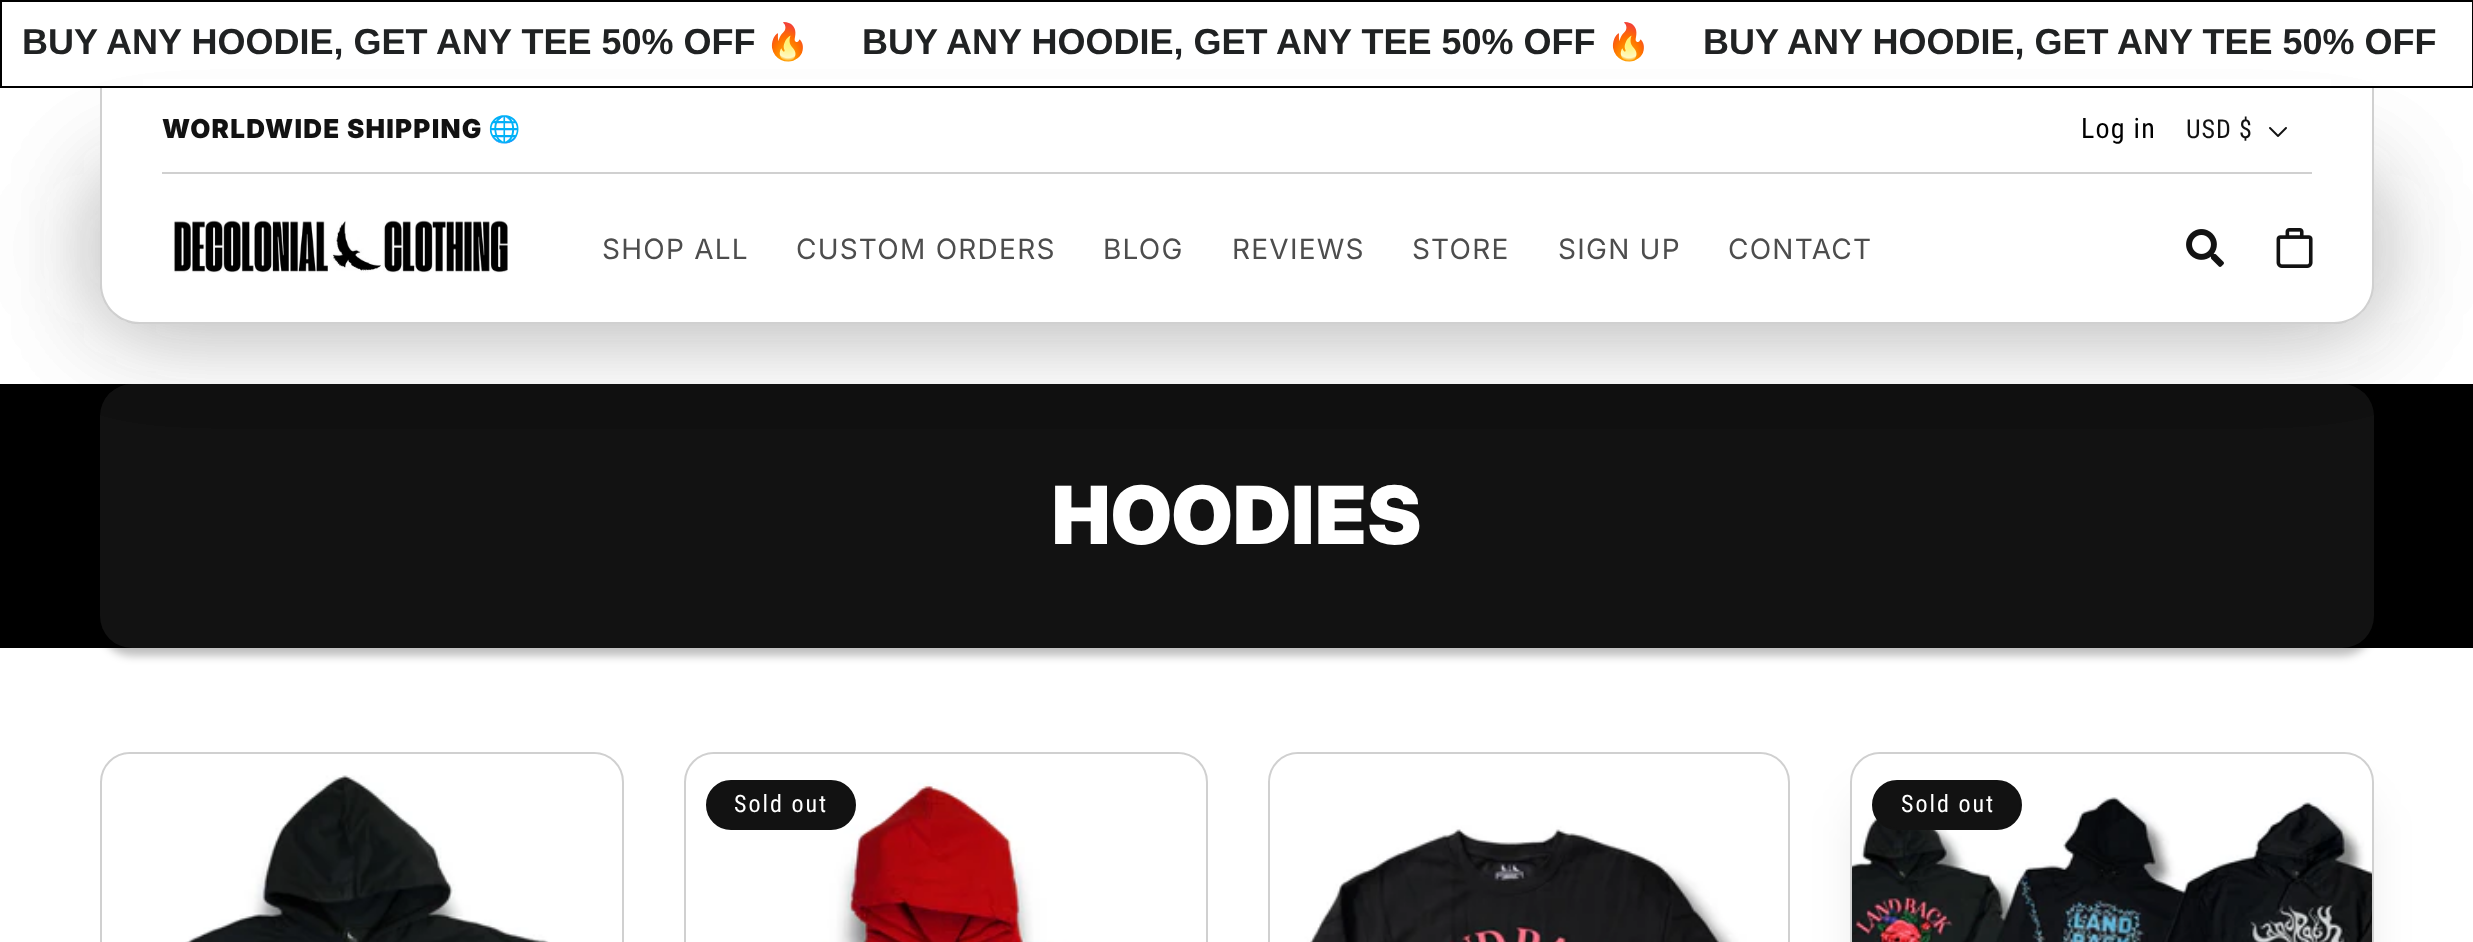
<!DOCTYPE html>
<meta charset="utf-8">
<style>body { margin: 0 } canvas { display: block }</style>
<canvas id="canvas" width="2473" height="942"></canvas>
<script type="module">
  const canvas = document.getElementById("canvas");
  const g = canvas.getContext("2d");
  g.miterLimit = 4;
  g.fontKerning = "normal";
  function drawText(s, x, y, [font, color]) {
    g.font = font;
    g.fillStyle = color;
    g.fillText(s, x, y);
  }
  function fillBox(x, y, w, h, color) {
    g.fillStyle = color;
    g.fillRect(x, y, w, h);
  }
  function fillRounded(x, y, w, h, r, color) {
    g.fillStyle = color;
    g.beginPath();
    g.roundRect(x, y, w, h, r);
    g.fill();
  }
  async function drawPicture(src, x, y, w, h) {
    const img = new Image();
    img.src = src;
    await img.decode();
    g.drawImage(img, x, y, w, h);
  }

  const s1 = ["bold 36px Liberation Sans", "#202223"];
  const s2 = ["bold 36px Noto Color Emoji", "#202223"];
  const s3 = ["900 26px 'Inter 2'", "#121212"];
  const s4 = ["bold 26px Noto Color Emoji", "#121212"];
  const s5 = ["28px Roboto Condensed", "#000000"];
  const s6 = ["26px Roboto Condensed", "#121212"];
  const s7 = ["28px Inter", "#4D4D4D"];
  const s8 = ["900 80px Inter", "#FFFFFF"];
  const s9 = ["24px Roboto Condensed", "#FFFFFF"];

  fillBox(0, 0, 2473, 942, "#FFFFFF");
  fillBox(0, 384, 2473, 264, "#000000");
  g.fillStyle = "rgba(0, 0, 0, 0.25)";
  g.filter = "blur(4px)";
  g.beginPath();
  g.roundRect(100, 392, 2274, 264, 32);
  g.fill();
  g.filter = "none";
  fillRounded(100, 384, 2274, 264, 32, "#121212");
  g.fillStyle = "rgba(18, 18, 18, 0.2)";
  g.filter = "blur(50px)";
  g.beginPath();
  g.roundRect(100, 174, 2274, 150, 40);
  g.fill();
  g.filter = "none";
  g.filter = "blur(50px)";
  g.beginPath();
  g.roundRect(100, 174, 2274, 150, 40);
  g.fill();
  g.filter = "none";
  fillBox(143, 79, 2188, 7, "#FFFFFF");
  g.strokeStyle = "#000000";
  g.lineWidth = 2;
  g.strokeRect(1, 1, 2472, 86);
  drawText("BUY ANY HOODIE, GET ANY TEE 50% OFF", 22, 54, s1);
  g.save();
  g.beginPath();
  g.rect(22, 22, 2430, 44);
  g.clip();
  drawText("🔥", 765, 54, s2);
  g.restore();
  drawText("BUY ANY HOODIE, GET ANY TEE 50% OFF", 862, 54, s1);
  g.save();
  g.beginPath();
  g.rect(22, 22, 2430, 44);
  g.clip();
  drawText("🔥", 1606, 54, s2);
  g.restore();
  drawText("BUY ANY HOODIE, GET ANY TEE 50% OFF", 1703, 54, s1);
  fillBox(102, 88, 2270, 86, "#FFFFFF");
  fillBox(2372, 88, 2, 86, "#D0D0D0");
  fillBox(100, 88, 2, 86, "#D0D0D0");
  fillBox(162, 172, 2150, 2, "#D0D0D0");
  g.letterSpacing = "1.25px";
  drawText("WORLDWIDE SHIPPING", 162, 138, s3);
  drawText("🌐", 488, 138, s4);
  drawText("Log in", 2081, 138, s5);
  g.letterSpacing = "1px";
  drawText("USD $", 2186, 138, s6);
  await drawPicture("pic1.png", 2269, 127, 18, 10);
  g.fillStyle = "#FFFFFF";
  g.beginPath();
  g.roundRect(100, 174, 2274, 150, [0, 0, 40, 40]);
  g.fill();
  g.fillStyle = "rgba(18, 18, 18, 0.2)";
  g.beginPath();
  g.moveTo(100, 174);
  g.lineTo(2374, 174);
  g.lineTo(2374, 284);
  g.bezierCurveTo(2374, 306, 2356, 324, 2334, 324);
  g.lineTo(140, 324);
  g.bezierCurveTo(118, 324, 100, 306, 100, 284);
  g.closePath();
  g.moveTo(102, 174);
  g.lineTo(2372, 174);
  g.lineTo(2372, 284);
  g.bezierCurveTo(2372, 305, 2355, 322, 2334, 322);
  g.lineTo(140, 322);
  g.bezierCurveTo(119, 322, 102, 305, 102, 284);
  g.closePath();
  g.fill("evenodd");
  await drawPicture("pic2.png", 173, 220, 335, 53);
  g.letterSpacing = "1.25px";
  drawText("SHOP ALL", 602, 259, s7);
  drawText("CUSTOM ORDERS", 796, 259, s7);
  drawText("BLOG", 1103, 259, s7);
  drawText("REVIEWS", 1232, 259, s7);
  drawText("STORE", 1412, 259, s7);
  drawText("SIGN UP", 1558, 259, s7);
  drawText("CONTACT", 1728, 259, s7);
  await drawPicture("pic3.png", 2186, 229, 38, 38);
  await drawPicture("pic4.png", 2276, 228, 37, 40);
  drawText("HOODIES", 1052, 544, s8);
  g.beginPath();
  g.roundRect(101, 753, 522, 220, 29);
  g.strokeStyle = "#D0D0D0";
  g.stroke();
  await drawPicture("pic5.png", 126, 754, 472, 188);
  g.beginPath();
  g.roundRect(685, 753, 522, 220, 29);
  g.stroke();
  await drawPicture("pic6.png", 710, 754, 472, 188);
  g.fillStyle = "#121212";
  g.beginPath();
  g.roundRect(707, 781, 148, 48, 24);
  g.fill();
  g.strokeStyle = "#121212";
  g.stroke();
  g.letterSpacing = "2px";
  drawText("Sold out", 734, 812, s9);
  g.beginPath();
  g.roundRect(1269, 753, 520, 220, 29);
  g.strokeStyle = "#D0D0D0";
  g.stroke();
  await drawPicture("pic7.png", 1270, 754, 494, 188);
  g.fillStyle = "rgba(0, 0, 0, 0.1)";
  g.filter = "blur(25px)";
  g.beginPath();
  g.roundRect(1860, 802, 504, 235, 20);
  g.fill();
  g.filter = "none";
  g.beginPath();
  g.roundRect(1851, 753, 522, 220, 29);
  g.stroke();
  await drawPicture("pic8.png", 1852, 754, 520, 188);
  g.fillStyle = "#121212";
  g.beginPath();
  g.roundRect(1873, 781, 148, 48, 24);
  g.fill();
  g.strokeStyle = "#121212";
  g.stroke();
  drawText("Sold out", 1901, 812, s9);
</script>
